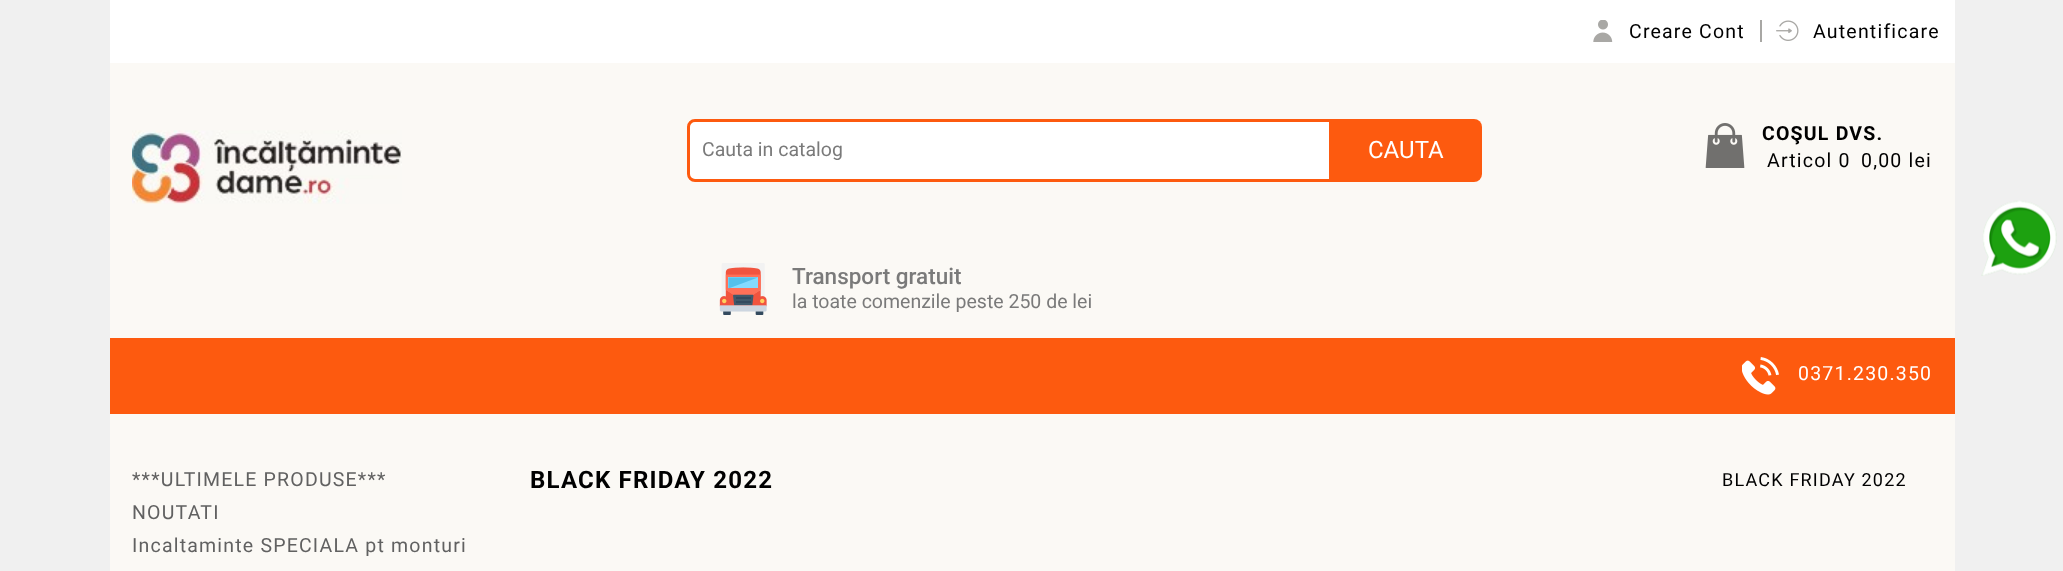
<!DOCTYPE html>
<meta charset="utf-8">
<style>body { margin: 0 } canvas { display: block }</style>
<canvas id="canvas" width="2063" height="571"></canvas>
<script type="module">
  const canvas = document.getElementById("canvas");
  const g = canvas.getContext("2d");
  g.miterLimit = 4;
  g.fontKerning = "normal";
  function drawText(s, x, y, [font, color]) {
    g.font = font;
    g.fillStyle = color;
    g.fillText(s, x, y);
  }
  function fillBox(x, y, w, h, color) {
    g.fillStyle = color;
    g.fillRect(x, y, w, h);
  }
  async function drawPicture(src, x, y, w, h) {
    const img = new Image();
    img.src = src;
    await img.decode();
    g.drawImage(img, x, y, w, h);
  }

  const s1 = ["19.5px Roboto", "#000000"];
  const s2 = ["19.5px Roboto", "#7A7A7A"];
  const s3 = ["24px Roboto", "#FFFFFF"];
  const s4 = ["bold 19.5px Roboto", "#000000"];
  const s5 = ["500 22.5px Roboto", "#7A7A7A"];
  const s6 = ["19.5px Roboto", "#FFFFFF"];
  const s7 = ["19.5px Roboto", "#616161"];
  const s8 = ["bold 24px Roboto", "#000000"];
  const s9 = ["18px Roboto", "#000000"];

  fillBox(0, 0, 2063, 571, "#F0F0F0");
  fillBox(110, 63, 1845, 508, "#FBF9F5");
  fillBox(110, 0, 1845, 63, "#FFFFFF");
  await drawPicture("pic1.png", 1593, 20, 20, 22);
  g.letterSpacing = "1.2px";
  drawText("Creare Cont", 1629, 38, s1);
  fillBox(1760, 20, 2, 22, "#A8A7A4");
  await drawPicture("pic2.png", 1776, 20, 23, 21);
  drawText("Autentificare", 1813, 38, s1);
  await drawPicture("pic3.png", 132, 130, 270, 74);
  g.fillStyle = "#FD5A0F";
  g.beginPath();
  g.roundRect(1325, 119, 157, 63, [0, 8, 8, 0]);
  g.fill();
  g.fillStyle = "#FFFFFF";
  g.beginPath();
  g.roundRect(688.5, 120.5, 642, 60, [6.5, 0, 0, 6.5]);
  g.fill();
  g.strokeStyle = "#FD5A0F";
  g.lineWidth = 3;
  g.stroke();
  g.letterSpacing = "0px";
  drawText("Cauta in catalog", 702, 156, s2);
  drawText("CAUTA", 1368, 158, s3);
  await drawPicture("pic4.png", 1705, 123, 40, 45);
  g.letterSpacing = "1.2px";
  drawText("COŞUL DVS.", 1762, 140, s4);
  drawText("Articol 0", 1767, 167, s1);
  drawText("0,00 lei", 1861, 167, s1);
  await drawPicture("pic5.png", 719, 263, 48, 52);
  g.letterSpacing = "0px";
  drawText("Transport gratuit", 792, 284, s5);
  drawText("la toate comenzile peste 250 de lei", 792, 308, s2);
  fillBox(110, 338, 1845, 76, "#FD5A0F");
  await drawPicture("pic6.png", 1742, 357, 37, 38);
  g.letterSpacing = "1.2px";
  drawText("0371.230.350", 1798, 380, s6);
  drawText("***ULTIMELE PRODUSE***", 132, 486, s7);
  drawText("NOUTATI", 132, 519, s7);
  drawText("Incaltaminte SPECIALA pt monturi", 132, 552, s7);
  drawText("BLACK FRIDAY 2022", 530, 488, s8);
  drawText("BLACK FRIDAY 2022", 1722, 486, s9);
  await drawPicture("pic7.png", 1981, 200, 76, 76);
</script>
